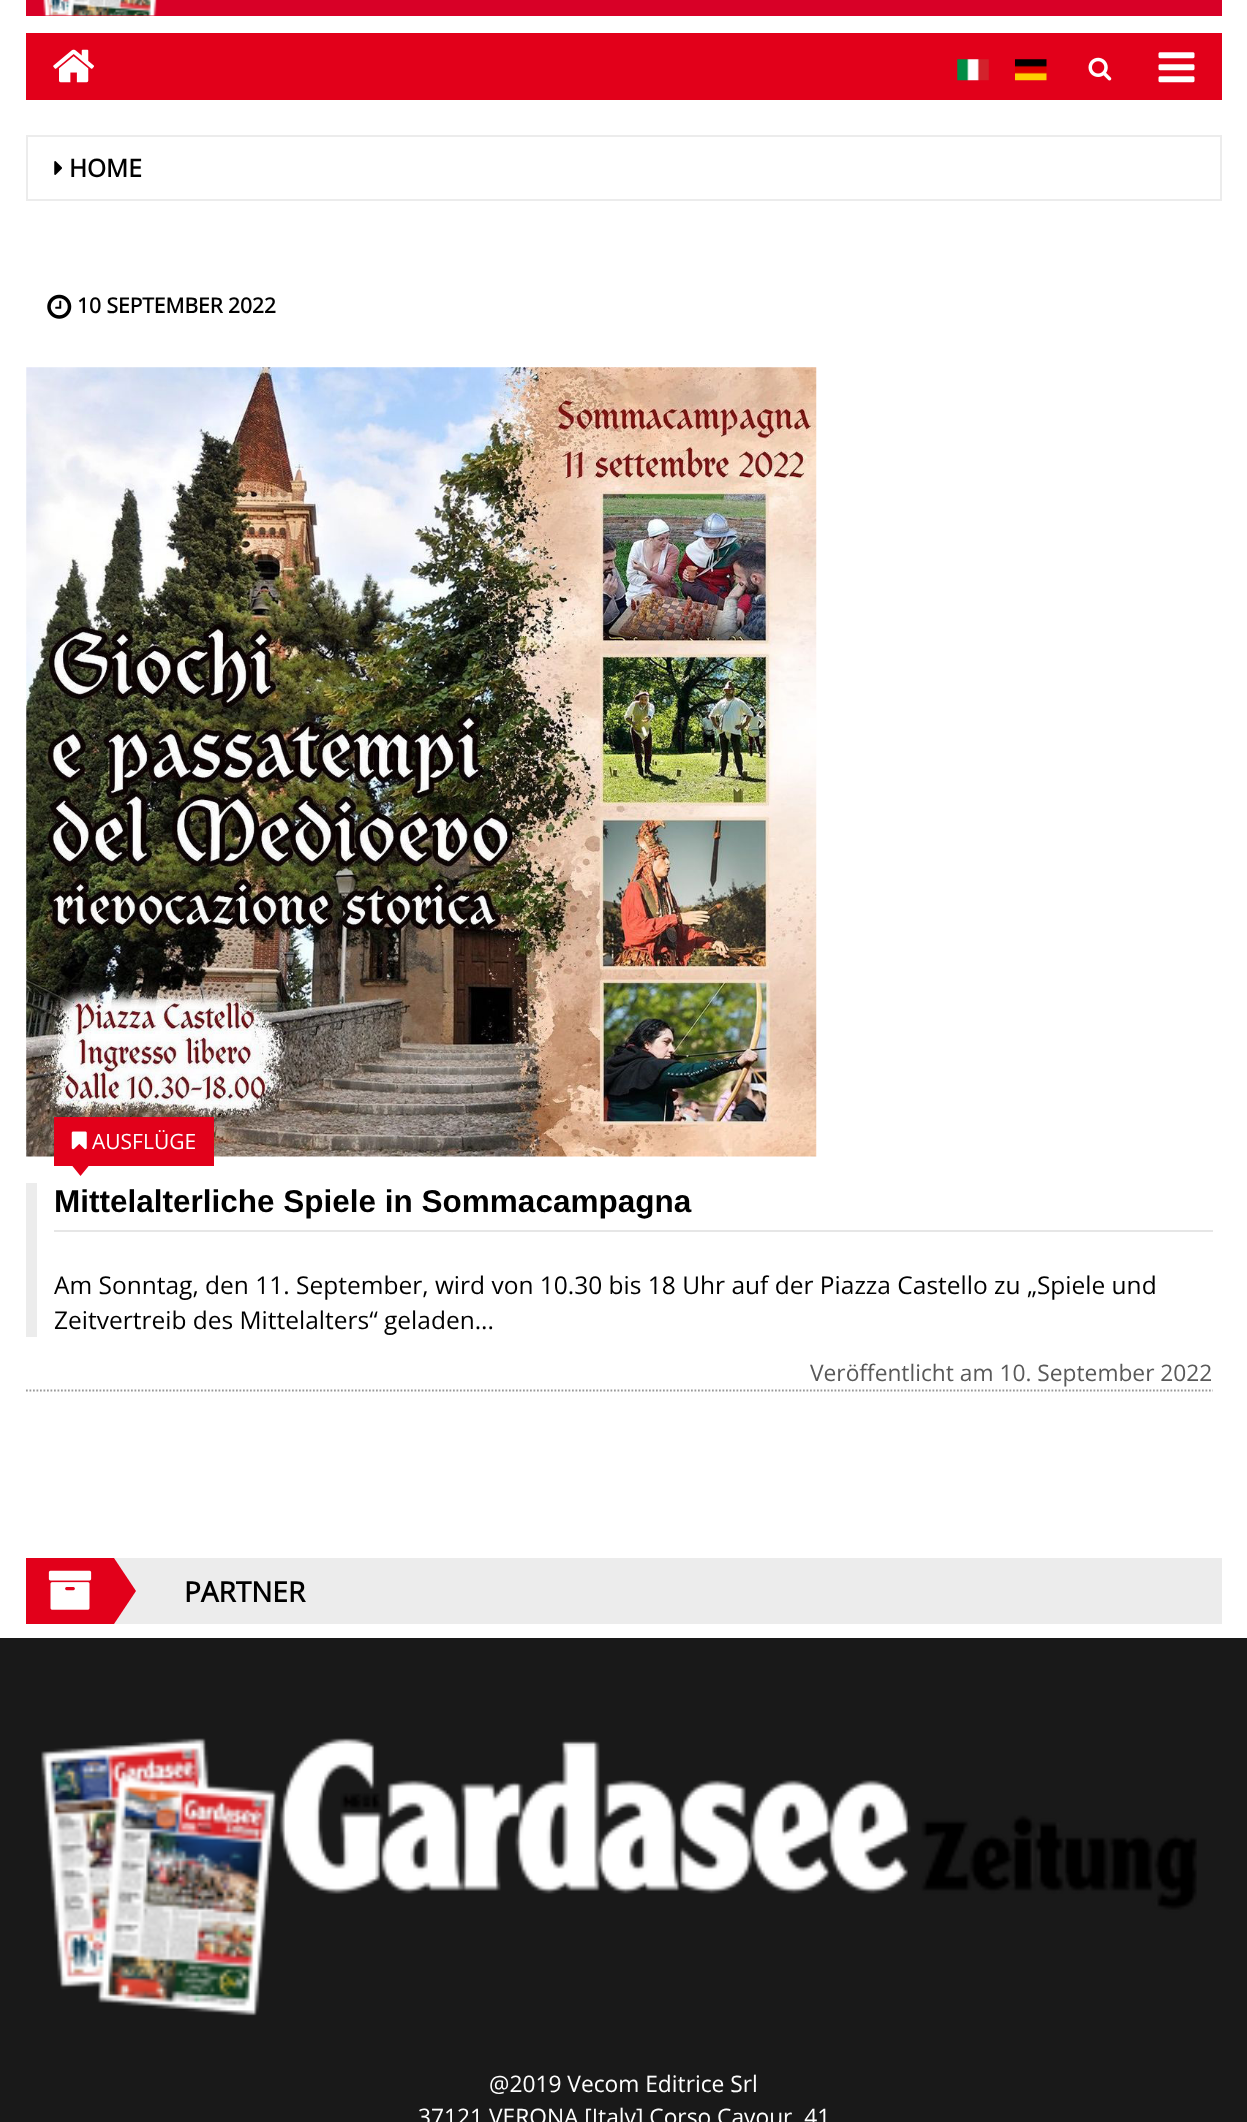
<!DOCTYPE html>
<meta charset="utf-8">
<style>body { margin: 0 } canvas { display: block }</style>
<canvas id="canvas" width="1247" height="2122"></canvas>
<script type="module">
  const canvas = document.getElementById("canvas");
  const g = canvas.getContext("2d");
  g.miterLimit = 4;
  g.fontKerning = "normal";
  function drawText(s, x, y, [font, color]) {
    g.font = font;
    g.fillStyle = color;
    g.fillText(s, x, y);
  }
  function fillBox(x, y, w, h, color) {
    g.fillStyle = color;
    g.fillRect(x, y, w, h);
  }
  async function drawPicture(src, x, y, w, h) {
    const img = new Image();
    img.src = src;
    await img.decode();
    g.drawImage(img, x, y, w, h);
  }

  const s1 = ["bold 24.5px Open Sans", "#000000"];
  const s2 = ["bold 21px Open Sans", "#000000"];
  const s3 = ["21px Open Sans", "#FFFFFF"];
  const s4 = ["bold 31.5px Liberation Sans", "#000000"];
  const s5 = ["24.5px Open Sans", "#000000"];
  const s6 = ["22.75px Open Sans", "#595959"];
  const s7 = ["bold 28px Open Sans", "#000000"];
  const s8 = ["22.75px Open Sans", "#FFFFFF"];

  fillBox(0, 0, 1247, 2122, "#FFFFFF");
  fillBox(26, 0, 1196, 16, "#D80027");
  await drawPicture("pic1.png", 43, 0, 114, 16);
  fillBox(26, 33, 1196, 67, "#E2001A");
  await drawPicture("pic2.png", 53, 49, 41, 34);
  await drawPicture("pic3.png", 957, 59, 32, 22);
  await drawPicture("pic4.png", 1015, 59, 32, 22);
  await drawPicture("pic5.png", 1088, 57, 24, 24);
  await drawPicture("pic6.png", 1158, 52, 37, 31);
  g.strokeStyle = "#ECECEC";
  g.lineWidth = 2;
  g.strokeRect(27, 136, 1194, 64);
  await drawPicture("pic7.png", 54, 161, 8, 14);
  drawText("HOME", 69, 177, s1);
  await drawPicture("pic8.png", 47, 294, 25, 25);
  drawText("10 SEPTEMBER 2022", 77, 313, s2);
  g.beginPath();
  g.moveTo(26, 1390.5);
  g.lineTo(1213, 1390.5);
  g.strokeStyle = "#999999";
  g.lineWidth = 1.8;
  g.setLineDash([1.75, 1.75]);
  g.stroke();
  await drawPicture("pic9.png", 26, 367, 791, 790);
  fillBox(26, 1183, 11, 154, "#ECECEC");
  fillBox(54, 1117, 160, 49, "#E2001A");
  await drawPicture("pic10.png", 71, 1131, 16, 19);
  drawText("AUSFLÜGE", 92, 1149, s3);
  g.fillStyle = "#E2001A";
  g.beginPath();
  g.moveTo(72, 1165.5);
  g.lineTo(89, 1165.5);
  g.lineTo(80.5, 1176);
  g.closePath();
  g.fill();
  drawText("Mittelalterliche Spiele in Sommacampagna", 54, 1212, s4);
  fillBox(54, 1230, 1159, 2, "#E6E6E6");
  drawText("Am Sonntag, den 11. September, wird von 10.30 bis 18 Uhr auf der Piazza Castello zu „Spiele und", 54, 1294, s5);
  drawText("Zeitvertreib des Mittelalters“ geladen...", 54, 1329, s5);
  drawText("Veröffentlicht am 10. September 2022", 810, 1381, s6);
  fillBox(114, 1558, 1108, 66, "#ECECEC");
  fillBox(26, 1558, 88, 66, "#E2001A");
  await drawPicture("pic11.png", 48, 1570, 44, 40);
  g.beginPath();
  g.moveTo(114, 1624);
  g.lineTo(114, 1558);
  g.lineTo(136, 1591);
  g.closePath();
  g.fill();
  drawText("PARTNER", 184, 1602, s7);
  fillBox(0, 1638, 1247, 484, "#191919");
  await drawPicture("pic12.png", 41, 1738, 1156, 278);
  drawText("@2019 Vecom Editrice Srl", 489, 2092, s8);
  drawText("37121 VERONA [Italy] Corso Cavour, 41", 418, 2125, s8);
</script>
